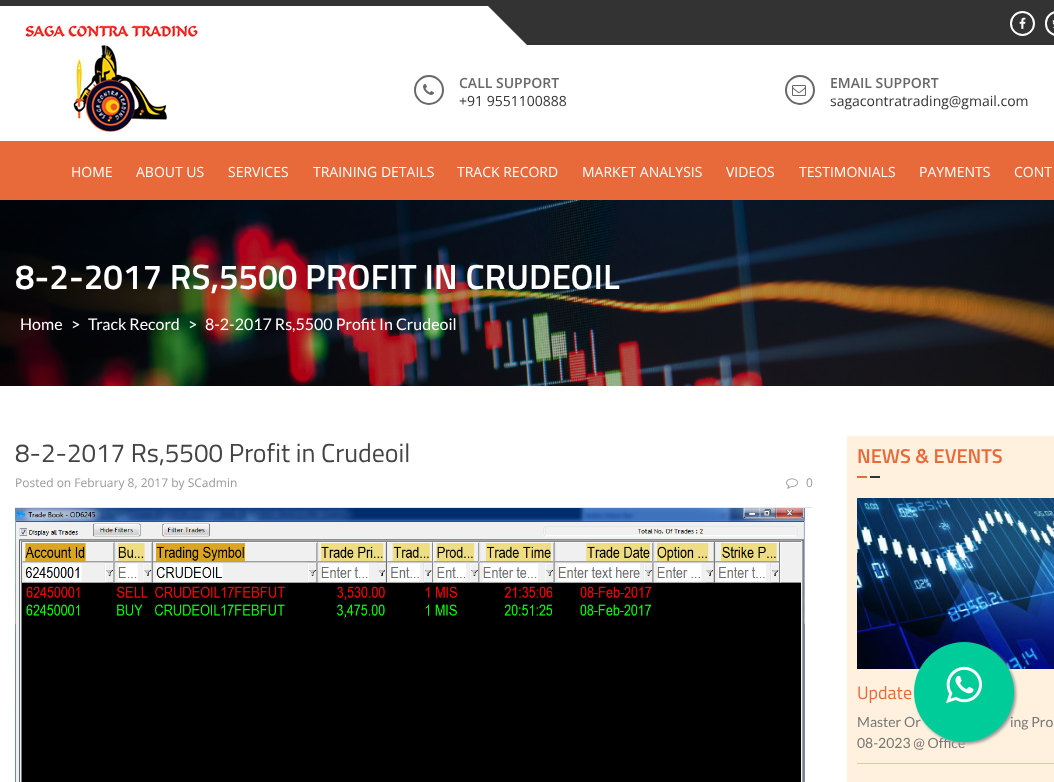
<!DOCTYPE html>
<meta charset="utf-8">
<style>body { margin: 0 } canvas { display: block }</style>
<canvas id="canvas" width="1054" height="782"></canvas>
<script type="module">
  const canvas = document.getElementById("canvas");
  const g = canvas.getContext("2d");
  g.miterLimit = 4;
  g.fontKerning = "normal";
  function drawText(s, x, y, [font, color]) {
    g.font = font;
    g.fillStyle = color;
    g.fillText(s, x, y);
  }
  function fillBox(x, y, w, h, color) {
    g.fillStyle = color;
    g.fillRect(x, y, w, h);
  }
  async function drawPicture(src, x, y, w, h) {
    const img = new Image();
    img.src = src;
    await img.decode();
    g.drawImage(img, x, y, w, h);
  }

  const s1 = ["600 14px Open Sans", "#686868"];
  const s2 = ["14px Open Sans", "#333333"];
  const s3 = ["14px Open Sans", "#FFFFFF"];
  const s4 = ["600 35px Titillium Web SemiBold", "#FFFFFF"];
  const s5 = ["16px Lato", "#FFFFFF"];
  const s6 = ["26px Titillium Web", "#444444"];
  const s7 = ["12px Open Sans", "#999999"];
  const s8 = ["600 20px Titillium Web SemiBold", "#E8693A"];
  const s9 = ["18px Titillium Web", "#E8693A"];
  const s10 = ["14px Lato", "#777777"];

  fillBox(0, 0, 1054, 782, "#FFFFFF");
  fillBox(0, 0, 1054, 6, "#333333");
  g.beginPath();
  g.moveTo(488, 6);
  g.lineTo(527, 6);
  g.lineTo(527, 45);
  g.closePath();
  g.fill();
  fillBox(527, 6, 527, 39, "#333333");
  g.beginPath();
  g.arc(1022.5, 23.5, 11.5, 0, Math.PI * 2);
  g.strokeStyle = "#FFFFFF";
  g.lineWidth = 2;
  g.stroke();
  await drawPicture("pic1.png", 1019, 17, 7, 12);
  g.beginPath();
  g.roundRect(1046, 12, 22, 23, 11.5);
  g.stroke();
  await drawPicture("pic2.png", 1052, 20, 2, 8);
  await drawPicture("pic3.png", 23, 20, 176, 112);
  g.beginPath();
  g.arc(429, 90, 14, 0, Math.PI * 2);
  g.strokeStyle = "#686868";
  g.stroke();
  await drawPicture("pic4.png", 423, 84, 11, 11);
  drawText("CALL SUPPORT", 459, 88, s1);
  drawText("+91 9551100888", 459, 106, s2);
  g.beginPath();
  g.arc(800, 90, 14, 0, Math.PI * 2);
  g.stroke();
  await drawPicture("pic5.png", 792, 85, 14, 11);
  drawText("EMAIL SUPPORT", 830, 88, s1);
  drawText("sagacontratrading@gmail.com", 830, 106, s2);
  fillBox(0, 141, 1054, 59, "#E8693A");
  drawText("HOME", 71, 177, s3);
  drawText("ABOUT US", 136, 177, s3);
  drawText("SERVICES", 228, 177, s3);
  drawText("TRAINING DETAILS", 313, 177, s3);
  drawText("TRACK RECORD", 457, 177, s3);
  drawText("MARKET ANALYSIS", 582, 177, s3);
  drawText("VIDEOS", 726, 177, s3);
  drawText("TESTIMONIALS", 799, 177, s3);
  drawText("PAYMENTS", 919, 177, s3);
  drawText("CONT", 1014, 177, s3);
  await drawPicture("pic6.png", 0, 200, 1054, 186);
  drawText("8-2-2017 RS,5500 PROFIT IN CRUDEOIL", 15, 289, s4);
  drawText("Home", 20, 330, s5);
  drawText(">", 71, 330, s5);
  drawText("Track Record", 88, 330, s5);
  drawText(">", 188, 330, s5);
  drawText("8-2-2017 Rs,5500 Profit In Crudeoil", 205, 330, s5);
  drawText("8-2-2017 Rs,5500 Profit in Crudeoil", 15, 462, s6);
  fillBox(15, 507, 798, 1, "#E7E7E7");
  drawText("Posted on February 8, 2017 by SCadmin", 15, 487, s7);
  await drawPicture("pic7.png", 786, 478, 12, 11);
  drawText("0", 806, 487, s7);
  await drawPicture("pic8.png", 15, 508, 790, 274);
  fillBox(847, 436, 207, 346, "#FFF1DE");
  drawText("NEWS & EVENTS", 857, 463, s8);
  fillBox(857, 476, 10, 2, "#E8693A");
  fillBox(870, 476, 10, 2, "#333333");
  fillBox(857, 763, 197, 1, "#CCCCCC");
  await drawPicture("pic9.png", 857, 498, 197, 171);
  drawText("Update", 857, 699, s9);
  drawText("Master Or", 857, 727, s10);
  drawText("ing Pro", 1010, 727, s10);
  drawText("08-2023 @ Office", 857, 748, s10);
  g.fillStyle = "#999999";
  g.filter = "blur(1.5px)";
  g.beginPath();
  g.roundRect(916, 644, 100, 100, 50);
  g.fill();
  g.filter = "none";
  g.fillStyle = "#00CC99";
  g.beginPath();
  g.arc(964, 692, 50, 0, Math.PI * 2);
  g.fill();
  await drawPicture("pic10.png", 946, 666, 36, 38);
</script>
